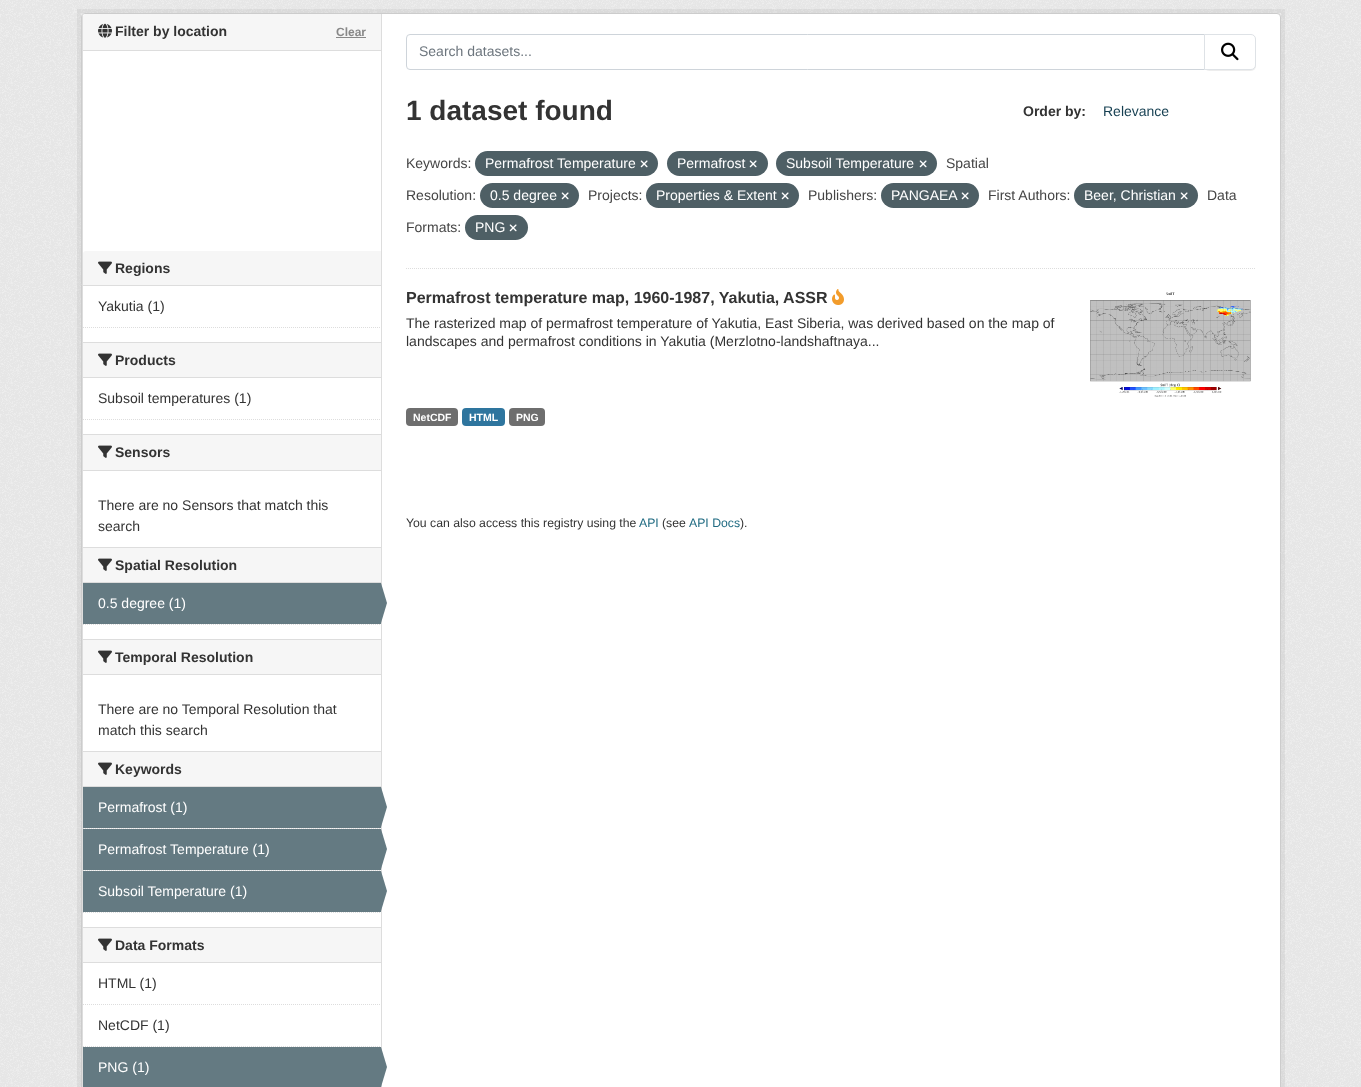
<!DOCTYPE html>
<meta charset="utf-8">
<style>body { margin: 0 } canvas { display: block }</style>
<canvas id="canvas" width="1361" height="1087"></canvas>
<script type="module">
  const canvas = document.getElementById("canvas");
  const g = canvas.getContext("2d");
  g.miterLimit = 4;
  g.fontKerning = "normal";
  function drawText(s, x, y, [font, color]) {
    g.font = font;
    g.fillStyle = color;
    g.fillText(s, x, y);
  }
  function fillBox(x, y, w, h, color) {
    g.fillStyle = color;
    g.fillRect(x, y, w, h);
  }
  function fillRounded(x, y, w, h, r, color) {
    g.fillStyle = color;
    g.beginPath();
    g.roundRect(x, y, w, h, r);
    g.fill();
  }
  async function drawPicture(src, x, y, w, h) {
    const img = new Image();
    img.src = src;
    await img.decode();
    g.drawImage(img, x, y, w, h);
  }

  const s1 = ["bold 14px Liberation Sans", "#333333"];
  const s2 = ["bold 12px Liberation Sans", "#888888"];
  const s3 = ["14px Liberation Sans", "#333333"];
  const s4 = ["14px Liberation Sans", "#FFFFFF"];
  const s5 = ["14px Liberation Sans", "#6C757D"];
  const s6 = ["bold 28px Liberation Sans", "#333333"];
  const s7 = ["14px Liberation Sans", "#153F51"];
  const s8 = ["14px Liberation Sans", "#444444"];
  const s9 = ["bold 16px Liberation Sans", "#333333"];
  const s10 = ["bold 10.5px Liberation Sans", "#FFFFFF"];
  const s11 = ["12.25px Liberation Sans", "#333333"];
  const s12 = ["12.25px Liberation Sans", "#206B82"];

  fillBox(0, 0, 1361, 1087, "#EEEEEE");
  await drawPicture("pic1.png", 0, 0, 1361, 1087);
  g.strokeStyle = "rgba(0, 0, 0, 0.05)";
  g.lineWidth = 4;
  g.strokeRect(79, 11, 1204, 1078);
  g.fillStyle = "#FFFFFF";
  g.beginPath();
  g.roundRect(81.5, 13.5, 1199, 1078, 3.5);
  g.fill();
  g.strokeStyle = "#CCCCCC";
  g.lineWidth = 1;
  g.stroke();
  fillBox(82, 14, 1, 1073, "#DDDDDD");
  g.fillStyle = "#F6F6F6";
  g.beginPath();
  g.roundRect(83, 14, 298, 37, [3, 0, 0, 0]);
  g.fill();
  fillBox(83, 50, 298, 1, "#DDDDDD");
  await drawPicture("pic2.png", 98, 23, 14, 15);
  drawText("Filter by location", 115, 36, s1);
  drawText("Clear", 336, 36, s2);
  fillBox(336, 37, 30, 1, "#888888");
  g.fillStyle = "#F6F6F6";
  g.beginPath();
  g.roundRect(83, 251, 298, 35, [3, 0, 0, 0]);
  g.fill();
  fillBox(83, 285, 298, 1, "#DDDDDD");
  await drawPicture("pic3.png", 98, 261, 14, 13);
  drawText("Regions", 115, 273, s1);
  drawText("Yakutia (1)", 98, 311, s3);
  g.beginPath();
  g.moveTo(83, 327.5);
  g.lineTo(381, 327.5);
  g.strokeStyle = "#DDDDDD";
  g.setLineDash([1, 1]);
  g.stroke();
  fillBox(83, 343, 298, 34, "#F6F6F6");
  fillBox(83, 342, 298, 1, "#DDDDDD");
  fillBox(83, 377, 298, 1, "#DDDDDD");
  await drawPicture("pic3.png", 98, 353, 14, 13);
  drawText("Products", 115, 365, s1);
  drawText("Subsoil temperatures (1)", 98, 403, s3);
  g.beginPath();
  g.moveTo(83, 419.5);
  g.lineTo(381, 419.5);
  g.stroke();
  fillBox(83, 435, 298, 35, "#F6F6F6");
  fillBox(83, 434, 298, 1, "#DDDDDD");
  fillBox(83, 470, 298, 1, "#DDDDDD");
  await drawPicture("pic3.png", 98, 445, 14, 13);
  drawText("Sensors", 115, 457, s1);
  drawText("There are no Sensors that match this", 98, 510, s3);
  drawText("search", 98, 531, s3);
  fillBox(83, 548, 298, 34, "#F6F6F6");
  fillBox(83, 547, 298, 1, "#DDDDDD");
  fillBox(83, 582, 298, 1, "#DDDDDD");
  await drawPicture("pic3.png", 98, 558, 14, 13);
  drawText("Spatial Resolution", 115, 570, s1);
  fillBox(83, 583, 298, 41, "#647A82");
  drawText("0.5 degree (1)", 98, 608, s4);
  fillBox(381, 14, 1, 1073, "#DDDDDD");
  g.fillStyle = "#647A82";
  g.beginPath();
  g.moveTo(381, 623);
  g.lineTo(381, 583);
  g.lineTo(387, 603);
  g.closePath();
  g.fill();
  g.beginPath();
  g.moveTo(83, 624.5);
  g.lineTo(381, 624.5);
  g.stroke();
  fillBox(83, 640, 298, 34, "#F6F6F6");
  fillBox(83, 639, 298, 1, "#DDDDDD");
  fillBox(83, 674, 298, 1, "#DDDDDD");
  await drawPicture("pic3.png", 98, 650, 14, 13);
  drawText("Temporal Resolution", 115, 662, s1);
  drawText("There are no Temporal Resolution that", 98, 714, s3);
  drawText("match this search", 98, 735, s3);
  fillBox(83, 752, 298, 34, "#F6F6F6");
  fillBox(83, 751, 298, 1, "#DDDDDD");
  fillBox(83, 786, 298, 1, "#DDDDDD");
  await drawPicture("pic3.png", 98, 762, 14, 13);
  drawText("Keywords", 115, 774, s1);
  fillBox(84, 828, 297, 1, "#F6F6F6");
  g.beginPath();
  g.moveTo(83, 828.5);
  g.lineTo(381, 828.5);
  g.stroke();
  fillBox(83, 787, 298, 41, "#647A82");
  drawText("Permafrost (1)", 98, 812, s4);
  g.fillStyle = "#647A82";
  g.beginPath();
  g.moveTo(381, 827);
  g.lineTo(381, 787);
  g.lineTo(387, 807);
  g.closePath();
  g.fill();
  fillBox(84, 870, 297, 1, "#F6F6F6");
  g.beginPath();
  g.moveTo(83, 870.5);
  g.lineTo(381, 870.5);
  g.stroke();
  fillBox(83, 829, 298, 41, "#647A82");
  drawText("Permafrost Temperature (1)", 98, 854, s4);
  g.fillStyle = "#647A82";
  g.beginPath();
  g.moveTo(381, 869);
  g.lineTo(381, 829);
  g.lineTo(387, 849);
  g.closePath();
  g.fill();
  fillBox(83, 871, 298, 41, "#647A82");
  drawText("Subsoil Temperature (1)", 98, 896, s4);
  g.fillStyle = "#647A82";
  g.beginPath();
  g.moveTo(381, 911);
  g.lineTo(381, 871);
  g.lineTo(387, 891);
  g.closePath();
  g.fill();
  g.beginPath();
  g.moveTo(83, 912.5);
  g.lineTo(381, 912.5);
  g.stroke();
  fillBox(83, 928, 298, 34, "#F6F6F6");
  fillBox(83, 927, 298, 1, "#DDDDDD");
  fillBox(83, 962, 298, 1, "#DDDDDD");
  await drawPicture("pic3.png", 98, 938, 14, 13);
  drawText("Data Formats", 115, 950, s1);
  g.beginPath();
  g.moveTo(83, 1004.5);
  g.lineTo(381, 1004.5);
  g.stroke();
  drawText("HTML (1)", 98, 988, s3);
  g.beginPath();
  g.moveTo(83, 1046.5);
  g.lineTo(381, 1046.5);
  g.stroke();
  drawText("NetCDF (1)", 98, 1030, s3);
  fillBox(83, 1047, 298, 40, "#647A82");
  drawText("PNG (1)", 98, 1072, s4);
  g.fillStyle = "#647A82";
  g.beginPath();
  g.moveTo(381, 1087);
  g.lineTo(381, 1047);
  g.lineTo(387, 1067);
  g.closePath();
  g.fill();
  g.beginPath();
  g.moveTo(406, 268.5);
  g.lineTo(1256, 268.5);
  g.stroke();
  g.beginPath();
  g.roundRect(406.5, 34.5, 798, 35, [3.5, 0, 0, 3.5]);
  g.strokeStyle = "#CED4DA";
  g.setLineDash([]);
  g.stroke();
  drawText("Search datasets...", 419, 56, s5);
  g.fillStyle = "rgba(0, 0, 0, 0.07)";
  g.filter = "blur(0.5px)";
  g.beginPath();
  g.roundRect(1204, 35, 52, 36, 5);
  g.fill();
  g.filter = "none";
  g.fillStyle = "#FFFFFF";
  g.beginPath();
  g.roundRect(1204.5, 34.5, 51, 35, [0, 4.5, 4.5, 0]);
  g.fill();
  g.strokeStyle = "#DEE2E6";
  g.stroke();
  await drawPicture("pic4.png", 1221, 42, 18, 19);
  drawText("1 dataset found", 406, 120, s6);
  drawText("Order by:", 1023, 116, s1);
  drawText("Relevance", 1103, 116, s7);
  drawText("Keywords:", 406, 168, s8);
  fillRounded(475, 151, 183, 25, 12.5, "#4E5F65");
  drawText("Permafrost Temperature", 485, 168, s4);
  await drawPicture("pic5.png", 640, 160, 8, 8);
  fillRounded(667, 151, 101, 25, 12.5, "#4E5F65");
  drawText("Permafrost", 677, 168, s4);
  await drawPicture("pic5.png", 749, 160, 8, 8);
  fillRounded(776, 151, 161, 25, 12.5, "#4E5F65");
  drawText("Subsoil Temperature", 786, 168, s4);
  await drawPicture("pic5.png", 919, 160, 8, 8);
  drawText("Spatial", 946, 168, s8);
  drawText("Resolution:", 406, 200, s8);
  fillRounded(480, 183, 99, 25, 12.5, "#4E5F65");
  drawText("0.5 degree", 490, 200, s4);
  await drawPicture("pic5.png", 561, 192, 8, 8);
  drawText("Projects:", 588, 200, s8);
  fillRounded(646, 183, 153, 25, 12.5, "#4E5F65");
  drawText("Properties & Extent", 656, 200, s4);
  await drawPicture("pic5.png", 781, 192, 8, 8);
  drawText("Publishers:", 808, 200, s8);
  fillRounded(881, 183, 98, 25, 12.5, "#4E5F65");
  drawText("PANGAEA", 891, 200, s4);
  await drawPicture("pic5.png", 961, 192, 8, 8);
  drawText("First Authors:", 988, 200, s8);
  fillRounded(1074, 183, 124, 25, 12.5, "#4E5F65");
  drawText("Beer, Christian", 1084, 200, s4);
  await drawPicture("pic5.png", 1180, 192, 8, 8);
  drawText("Data", 1207, 200, s8);
  drawText("Formats:", 406, 232, s8);
  fillRounded(465, 215, 63, 25, 12.5, "#4E5F65");
  drawText("PNG", 475, 232, s4);
  await drawPicture("pic5.png", 509, 224, 8, 8);
  drawText("Permafrost temperature map, 1960-1987, Yakutia, ASSR", 406, 303, s9);
  await drawPicture("pic6.png", 832, 289, 12, 16);
  drawText("The rasterized map of permafrost temperature of Yakutia, East Siberia, was derived based on the map of", 406, 328, s3);
  drawText("landscapes and permafrost conditions in Yakutia (Merzlotno-landshaftnaya...", 406, 346, s3);
  await drawPicture("pic7.png", 1090, 292, 161, 105);
  fillRounded(406, 408, 52, 18, 4, "#6E6E6E");
  drawText("NetCDF", 413, 421, s10);
  fillRounded(462, 408, 43, 18, 4, "#2E759E");
  drawText("HTML", 469, 421, s10);
  fillRounded(509, 408, 36, 18, 4, "#6E6E6E");
  drawText("PNG", 516, 421, s10);
  drawText("You can also access this registry using the", 406, 527, s11);
  drawText("API", 639, 527, s12);
  drawText("(see", 662, 527, s11);
  drawText("API Docs", 689, 527, s12);
  drawText(").", 740, 527, s11);
</script>
